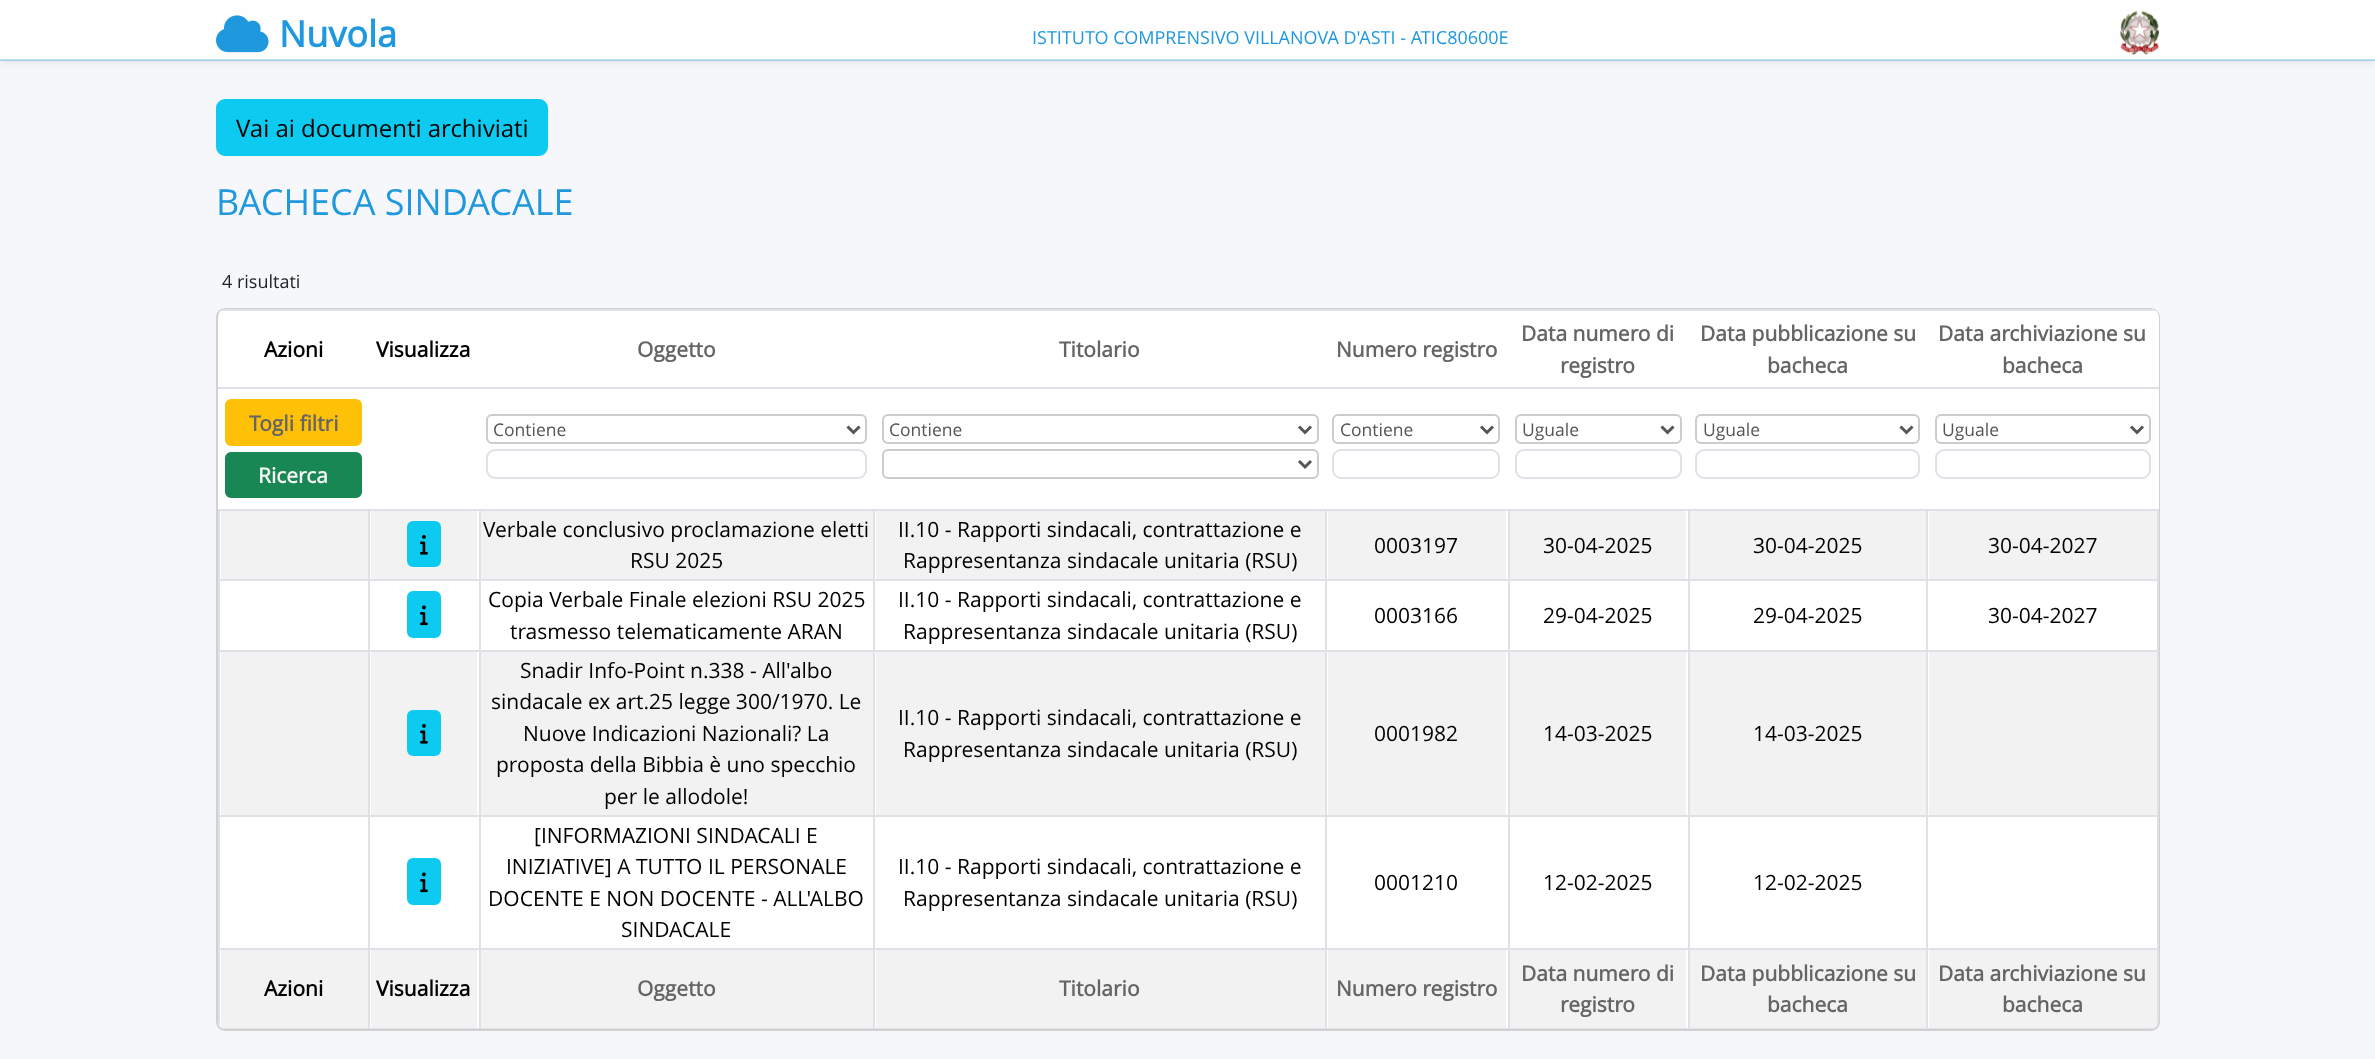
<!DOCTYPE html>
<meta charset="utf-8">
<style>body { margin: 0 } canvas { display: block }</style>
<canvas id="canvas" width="2375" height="1059"></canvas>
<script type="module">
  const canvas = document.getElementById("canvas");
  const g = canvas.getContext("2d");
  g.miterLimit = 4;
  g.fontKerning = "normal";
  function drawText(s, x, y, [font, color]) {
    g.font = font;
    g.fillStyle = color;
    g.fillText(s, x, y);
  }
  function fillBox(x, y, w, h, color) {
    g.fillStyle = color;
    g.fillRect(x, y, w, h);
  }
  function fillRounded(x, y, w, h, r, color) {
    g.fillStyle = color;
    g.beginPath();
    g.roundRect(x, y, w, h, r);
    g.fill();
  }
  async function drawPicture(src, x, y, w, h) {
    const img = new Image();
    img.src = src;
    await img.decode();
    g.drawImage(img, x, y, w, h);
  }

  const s1 = ["bold 36px Open Sans", "#1F98DE"];
  const s2 = ["18px Open Sans", "#1F98DE"];
  const s3 = ["24px Open Sans", "#000000"];
  const s4 = ["36px Open Sans", "#1F98DE"];
  const s5 = ["18px Open Sans", "#212529"];
  const s6 = ["bold 21px Open Sans", "#000000"];
  const s7 = ["bold 21px Open Sans", "#656565"];
  const s8 = ["bold 21px Open Sans", "#F4F4F4"];
  const s9 = ["17.5px Open Sans", "#555555"];
  const s10 = ["21px Open Sans", "#000000"];

  fillBox(0, 0, 2375, 1059, "#F5F7FA");
  g.fillStyle = "rgba(0, 0, 0, 0.15)";
  g.filter = "blur(5px)";
  g.beginPath();
  g.rect(0, 0, 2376, 60);
  g.fill();
  g.filter = "none";
  fillBox(0, 0, 2375, 60, "#FEFEFE");
  fillBox(0, 59, 2375, 2, "rgba(31, 152, 222, 0.3)");
  await drawPicture("pic1.png", 216, 15, 53, 38);
  drawText("Nuvola", 279, 47, s1);
  drawText("ISTITUTO COMPRENSIVO VILLANOVA D'ASTI - ATIC80600E", 1032, 44, s2);
  await drawPicture("pic2.png", 2119, 10, 41, 45);
  g.fillStyle = "#0DCAF0";
  g.beginPath();
  g.roundRect(217, 100, 330, 55, 8);
  g.fill();
  g.strokeStyle = "#0DCAF0";
  g.lineWidth = 2;
  g.stroke();
  drawText("Vai ai documenti archiviati", 236, 137, s3);
  drawText("BACHECA SINDACALE", 216, 215, s4);
  drawText("4 risultati", 222, 288, s5);
  fillRounded(216, 308, 1944, 723, 9, "#FFFFFF");
  g.beginPath();
  g.roundRect(217, 309, 1942, 721, 8);
  g.strokeStyle = "rgba(0, 0, 0, 0.18)";
  g.stroke();
  g.save();
  g.beginPath();
  g.roundRect(218, 309, 1941, 720, 8);
  g.clip();
  fillBox(219, 309, 150, 78, "#FFFFFF");
  g.restore();
  g.beginPath();
  g.roundRect(1928, 309, 231, 80, [0, 8, 0, 0]);
  g.fill();
  g.save();
  g.beginPath();
  g.roundRect(218, 309, 1941, 720, 8);
  g.clip();
  fillBox(218, 309, 1941, 2, "#DEE2E6");
  g.restore();
  drawText("Azioni", 264, 357, s6);
  drawText("Visualizza", 376, 357, s6);
  drawText("Oggetto", 637, 357, s7);
  drawText("Titolario", 1059, 357, s7);
  drawText("Numero registro", 1336, 357, s7);
  drawText("Data numero di", 1521, 341, s7);
  drawText("registro", 1560, 373, s7);
  drawText("Data pubblicazione su", 1700, 341, s7);
  drawText("bacheca", 1767, 373, s7);
  drawText("Data archiviazione su", 1938, 341, s7);
  drawText("bacheca", 2002, 373, s7);
  fillBox(218, 387, 1941, 2, "#DEE2E6");
  g.fillStyle = "#FFC107";
  g.beginPath();
  g.roundRect(226, 400, 135, 45, 5);
  g.fill();
  g.strokeStyle = "#FFC107";
  g.stroke();
  drawText("Togli filtri", 249, 431, s7);
  g.fillStyle = "#198754";
  g.beginPath();
  g.roundRect(226, 453, 135, 44, 5);
  g.fill();
  g.strokeStyle = "#198754";
  g.stroke();
  drawText("Ricerca", 258, 483, s8);
  g.beginPath();
  g.roundRect(487, 415, 379, 28, 5);
  g.strokeStyle = "#CCCCCC";
  g.stroke();
  g.beginPath();
  g.moveTo(847.5, 426.5);
  g.lineTo(853.5, 432.5);
  g.lineTo(859.5, 426.5);
  g.strokeStyle = "#555555";
  g.lineWidth = 3;
  g.stroke();
  drawText("Contiene", 493, 436, s9);
  g.beginPath();
  g.roundRect(487, 450, 379, 28, 8);
  g.strokeStyle = "#DEE2E6";
  g.lineWidth = 2;
  g.stroke();
  g.beginPath();
  g.roundRect(883, 415, 435, 28, 5);
  g.strokeStyle = "#CCCCCC";
  g.stroke();
  g.beginPath();
  g.moveTo(1299, 426.5);
  g.lineTo(1305, 432.5);
  g.lineTo(1311, 426.5);
  g.strokeStyle = "#555555";
  g.lineWidth = 3;
  g.stroke();
  g.save();
  g.beginPath();
  g.rect(890, 417, 403, 26);
  g.clip();
  drawText("Contiene", 889, 436, s9);
  g.restore();
  g.beginPath();
  g.roundRect(883, 450, 435, 28, 5);
  g.strokeStyle = "#CCCCCC";
  g.lineWidth = 2;
  g.stroke();
  g.beginPath();
  g.moveTo(1299, 461);
  g.lineTo(1305, 467);
  g.lineTo(1311, 461);
  g.strokeStyle = "#555555";
  g.lineWidth = 3;
  g.stroke();
  g.beginPath();
  g.roundRect(1333, 415, 166, 28, 5);
  g.strokeStyle = "#CCCCCC";
  g.lineWidth = 2;
  g.stroke();
  g.beginPath();
  g.moveTo(1481, 426.5);
  g.lineTo(1487, 432.5);
  g.lineTo(1493, 426.5);
  g.strokeStyle = "#555555";
  g.lineWidth = 3;
  g.stroke();
  drawText("Contiene", 1340, 436, s9);
  g.beginPath();
  g.roundRect(1333, 450, 166, 28, 8);
  g.strokeStyle = "#DEE2E6";
  g.lineWidth = 2;
  g.stroke();
  g.beginPath();
  g.roundRect(1516, 415, 165, 28, 5);
  g.strokeStyle = "#CCCCCC";
  g.stroke();
  g.beginPath();
  g.moveTo(1661.5, 426.5);
  g.lineTo(1667.5, 432.5);
  g.lineTo(1673.5, 426.5);
  g.strokeStyle = "#555555";
  g.lineWidth = 3;
  g.stroke();
  drawText("Uguale", 1522, 436, s9);
  g.beginPath();
  g.roundRect(1516, 450, 165, 28, 8);
  g.strokeStyle = "#DEE2E6";
  g.lineWidth = 2;
  g.stroke();
  g.beginPath();
  g.roundRect(1696, 415, 223, 28, 5);
  g.strokeStyle = "#CCCCCC";
  g.stroke();
  g.beginPath();
  g.moveTo(1900.5, 426.5);
  g.lineTo(1906.5, 432.5);
  g.lineTo(1912.5, 426.5);
  g.strokeStyle = "#555555";
  g.lineWidth = 3;
  g.stroke();
  drawText("Uguale", 1703, 436, s9);
  g.beginPath();
  g.roundRect(1696, 450, 223, 28, 8);
  g.strokeStyle = "#DEE2E6";
  g.lineWidth = 2;
  g.stroke();
  fillBox(2158, 389, 1, 120, "#FFFFFF");
  g.beginPath();
  g.roundRect(1936, 415, 214, 28, 5);
  g.strokeStyle = "#CCCCCC";
  g.stroke();
  g.beginPath();
  g.moveTo(2131, 426.5);
  g.lineTo(2137, 432.5);
  g.lineTo(2143, 426.5);
  g.strokeStyle = "#555555";
  g.lineWidth = 3;
  g.stroke();
  drawText("Uguale", 1942, 436, s9);
  g.beginPath();
  g.roundRect(1936, 450, 214, 28, 8);
  g.strokeStyle = "#DEE2E6";
  g.lineWidth = 2;
  g.stroke();
  fillBox(218, 509, 1941, 2, "#DEE2E6");
  fillBox(221, 511, 147, 68, "#F2F2F2");
  fillBox(371, 511, 106, 68, "#F2F2F2");
  g.fillStyle = "#0DCAF0";
  g.beginPath();
  g.roundRect(408, 522, 32, 44, 5);
  g.fill();
  g.strokeStyle = "#0DCAF0";
  g.stroke();
  await drawPicture("pic3.png", 420, 535, 8, 20);
  fillBox(481, 511, 392, 68, "#F2F2F2");
  drawText("Verbale conclusivo proclamazione eletti", 483, 537, s10);
  drawText("RSU 2025", 630, 568, s10);
  fillBox(876, 511, 449, 68, "#F2F2F2");
  drawText("II.10 - Rapporti sindacali, contrattazione e", 898, 537, s10);
  drawText("Rappresentanza sindacale unitaria (RSU)", 903, 568, s10);
  fillBox(1328, 511, 178, 68, "#F2F2F2");
  drawText("0003197", 1374, 553, s10);
  fillBox(1510, 511, 176, 68, "#F2F2F2");
  drawText("30-04-2025", 1543, 553, s10);
  fillBox(1690, 511, 236, 68, "#F2F2F2");
  drawText("30-04-2025", 1753, 553, s10);
  fillBox(1929, 511, 228, 68, "#F2F2F2");
  drawText("30-04-2027", 1988, 553, s10);
  fillBox(218, 579, 1941, 2, "#DEE2E6");
  g.fillStyle = "#0DCAF0";
  g.beginPath();
  g.roundRect(408, 592, 32, 45, 5);
  g.fill();
  g.stroke();
  await drawPicture("pic4.png", 420, 605, 8, 21);
  drawText("Copia Verbale Finale elezioni RSU 2025", 488, 607, s10);
  drawText("trasmesso telematicamente ARAN", 510, 639, s10);
  drawText("II.10 - Rapporti sindacali, contrattazione e", 898, 607, s10);
  drawText("Rappresentanza sindacale unitaria (RSU)", 903, 639, s10);
  drawText("0003166", 1374, 623, s10);
  drawText("29-04-2025", 1543, 623, s10);
  drawText("29-04-2025", 1753, 623, s10);
  drawText("30-04-2027", 1988, 623, s10);
  fillBox(218, 650, 1941, 2, "#DEE2E6");
  fillBox(221, 652, 147, 163, "#F2F2F2");
  fillBox(371, 652, 106, 163, "#F2F2F2");
  g.fillStyle = "#0DCAF0";
  g.beginPath();
  g.roundRect(408, 711, 32, 44, 5);
  g.fill();
  g.stroke();
  await drawPicture("pic3.png", 420, 724, 8, 20);
  fillBox(481, 652, 392, 163, "#F2F2F2");
  drawText("Snadir Info-Point n.338 - All'albo", 520, 678, s10);
  drawText("sindacale ex art.25 legge 300/1970. Le", 491, 709, s10);
  drawText("Nuove Indicazioni Nazionali? La", 523, 741, s10);
  drawText("proposta della Bibbia è uno specchio", 496, 772, s10);
  drawText("per le allodole!", 604, 804, s10);
  fillBox(876, 652, 449, 163, "#F2F2F2");
  drawText("II.10 - Rapporti sindacali, contrattazione e", 898, 725, s10);
  drawText("Rappresentanza sindacale unitaria (RSU)", 903, 757, s10);
  fillBox(1328, 652, 178, 163, "#F2F2F2");
  drawText("0001982", 1374, 741, s10);
  fillBox(1510, 652, 176, 163, "#F2F2F2");
  drawText("14-03-2025", 1543, 741, s10);
  fillBox(1690, 652, 236, 163, "#F2F2F2");
  drawText("14-03-2025", 1753, 741, s10);
  fillBox(1929, 652, 228, 163, "#F2F2F2");
  fillBox(218, 815, 1941, 2, "#DEE2E6");
  fillBox(218, 948, 1941, 2, "#DEE2E6");
  g.save();
  g.beginPath();
  g.roundRect(218, 309, 1941, 720, 8);
  g.clip();
  fillBox(218, 1028, 1941, 1, "#DEE2E6");
  fillBox(218, 948, 2, 81, "#DEE2E6");
  g.restore();
  fillBox(218, 509, 2, 441, "#DEE2E6");
  g.fillStyle = "#0DCAF0";
  g.beginPath();
  g.roundRect(408, 859, 32, 45, 5);
  g.fill();
  g.stroke();
  await drawPicture("pic4.png", 420, 872, 8, 21);
  drawText("[INFORMAZIONI SINDACALI E", 534, 843, s10);
  drawText("INIZIATIVE] A TUTTO IL PERSONALE", 506, 874, s10);
  drawText("DOCENTE E NON DOCENTE - ALL'ALBO", 488, 906, s10);
  drawText("SINDACALE", 621, 937, s10);
  drawText("II.10 - Rapporti sindacali, contrattazione e", 898, 874, s10);
  drawText("Rappresentanza sindacale unitaria (RSU)", 903, 906, s10);
  drawText("0001210", 1374, 890, s10);
  drawText("12-02-2025", 1543, 890, s10);
  drawText("12-02-2025", 1753, 890, s10);
  g.save();
  g.beginPath();
  g.roundRect(218, 309, 1941, 720, 8);
  g.clip();
  fillBox(2157, 948, 2, 81, "#DEE2E6");
  g.restore();
  fillBox(2157, 509, 2, 441, "#DEE2E6");
  fillBox(221, 950, 147, 78, "rgba(0, 0, 0, 0.05)");
  drawText("Azioni", 264, 996, s6);
  fillBox(371, 950, 106, 78, "#F2F2F2");
  fillBox(368, 509, 2, 520, "#DEE2E6");
  drawText("Visualizza", 376, 996, s6);
  fillBox(481, 950, 392, 78, "#F2F2F2");
  fillBox(479, 509, 2, 520, "#DEE2E6");
  drawText("Oggetto", 637, 996, s7);
  fillBox(876, 950, 449, 78, "#F2F2F2");
  fillBox(873, 509, 2, 520, "#DEE2E6");
  drawText("Titolario", 1059, 996, s7);
  fillBox(1328, 950, 178, 78, "#F2F2F2");
  fillBox(1325, 509, 2, 520, "#DEE2E6");
  drawText("Numero registro", 1336, 996, s7);
  fillBox(1510, 950, 176, 78, "#F2F2F2");
  fillBox(1508, 509, 2, 520, "#DEE2E6");
  drawText("Data numero di", 1521, 981, s7);
  drawText("registro", 1560, 1012, s7);
  fillBox(1690, 950, 236, 78, "#F2F2F2");
  fillBox(1688, 509, 2, 520, "#DEE2E6");
  drawText("Data pubblicazione su", 1700, 981, s7);
  drawText("bacheca", 1767, 1012, s7);
  g.save();
  g.beginPath();
  g.roundRect(218, 309, 1941, 720, 8);
  g.clip();
  fillBox(1929, 950, 228, 78, "#FFFFFF");
  g.restore();
  fillBox(1929, 950, 228, 78, "rgba(0, 0, 0, 0.05)");
  fillBox(1926, 509, 2, 520, "#DEE2E6");
  drawText("Data archiviazione su", 1938, 981, s7);
  drawText("bacheca", 2002, 1012, s7);
</script>
